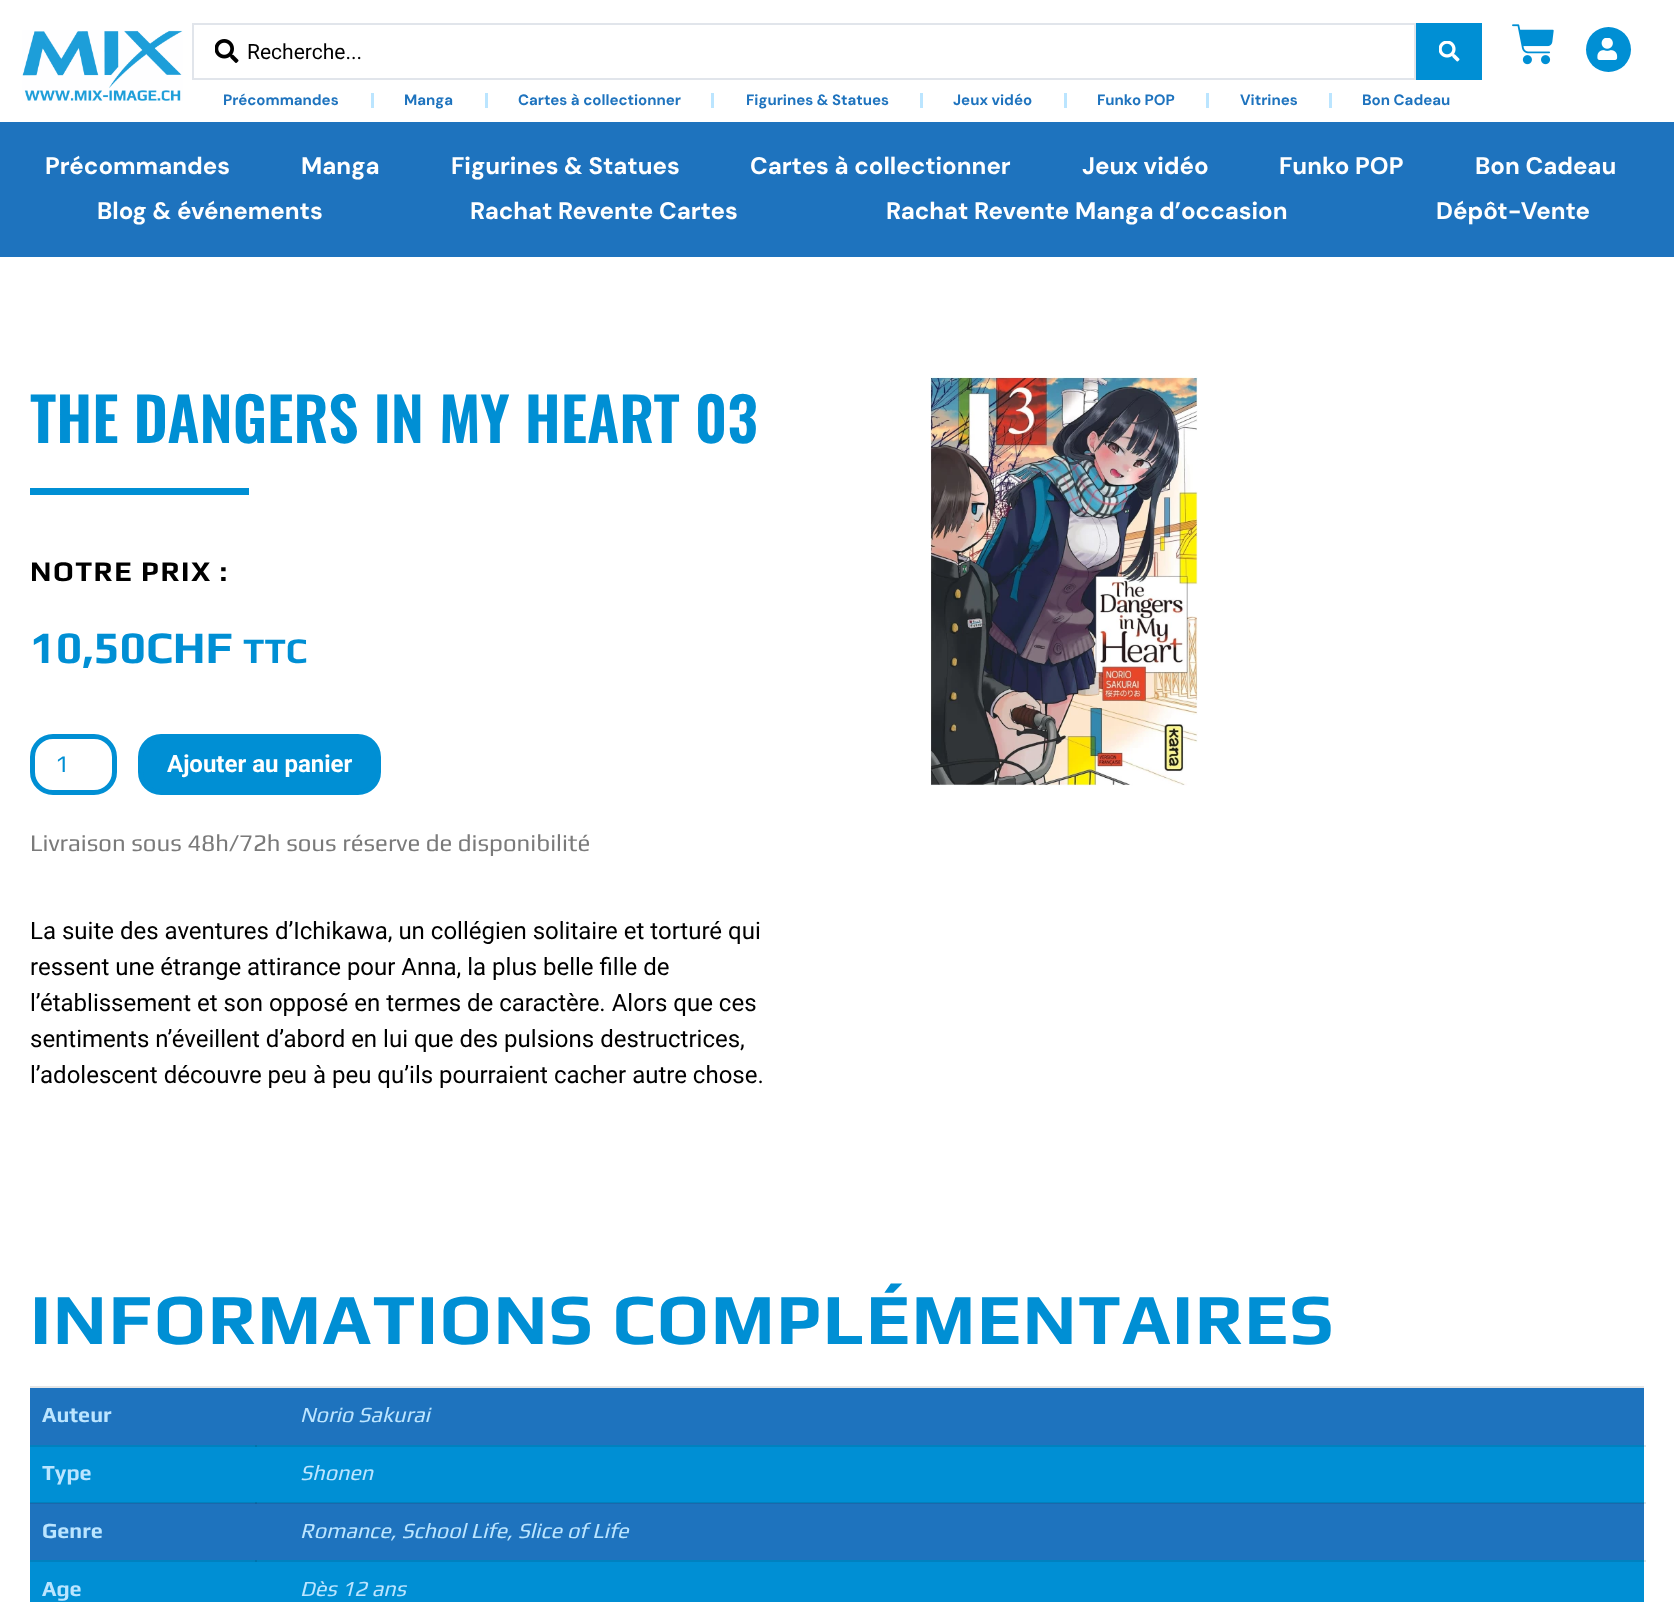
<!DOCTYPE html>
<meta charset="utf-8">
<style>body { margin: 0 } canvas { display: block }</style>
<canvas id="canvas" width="1674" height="1602"></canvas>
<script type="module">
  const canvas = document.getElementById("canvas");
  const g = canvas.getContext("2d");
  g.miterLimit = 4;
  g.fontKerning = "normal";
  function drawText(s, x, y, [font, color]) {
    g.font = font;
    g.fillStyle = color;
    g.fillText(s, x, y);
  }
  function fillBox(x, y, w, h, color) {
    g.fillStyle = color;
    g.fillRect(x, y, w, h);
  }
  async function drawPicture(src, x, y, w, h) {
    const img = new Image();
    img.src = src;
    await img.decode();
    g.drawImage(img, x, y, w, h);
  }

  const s1 = ["21px Roboto", "#000000"];
  const s2 = ["bold 15px DM Sans", "#1E73BE"];
  const s3 = ["bold 24px DM Sans", "#FFFFFF"];
  const s4 = ["600 60px Oswald", "#008FD4"];
  const s5 = ["bold 28.5px Play", "#000000"];
  const s6 = ["bold 45px Play", "#008FD4"];
  const s7 = ["bold 36px Play", "#008FD4"];
  const s8 = ["24px Play", "#008FD4"];
  const s9 = ["bold 24px Roboto", "#FFFFFF"];
  const s10 = ["24px Play", "#7A7A7A"];
  const s11 = ["24px Roboto", "#000000"];
  const s12 = ["bold 72px Play", "#008FD4"];
  const s13 = ["bold 21.6px Play", "#BBE5FF"];
  const s14 = ["italic 21.6px Play", "#BBE5FF"];

  fillBox(0, 0, 1674, 1602, "#FFFFFF");
  fillBox(1644, 1445, 2, 2, "#E6E6E6");
  fillBox(1644, 1502, 2, 2, "#E6E6E6");
  fillBox(1644, 1560, 2, 2, "#E6E6E6");
  await drawPicture("pic1.png", 22, 30, 161, 71);
  g.strokeStyle = "#E1E5EB";
  g.lineWidth = 2;
  g.strokeRect(193, 24, 1222, 55);
  await drawPicture("pic2.png", 215, 39, 24, 24);
  drawText("Recherche...", 247, 59, s1);
  fillBox(1416, 23, 66, 57, "#008FD4");
  await drawPicture("pic3.png", 1439, 41, 21, 21);
  drawText("Précommandes", 223, 105, s2);
  fillBox(371, 93, 3, 15, "#BBE5FF");
  drawText("Manga", 404, 105, s2);
  fillBox(485, 93, 3, 15, "#BBE5FF");
  drawText("Cartes à collectionner", 518, 105, s2);
  fillBox(711, 93, 3, 15, "#BBE5FF");
  drawText("Figurines & Statues", 746, 105, s2);
  fillBox(920, 93, 3, 15, "#BBE5FF");
  drawText("Jeux vidéo", 953, 105, s2);
  fillBox(1064, 93, 3, 15, "#BBE5FF");
  drawText("Funko POP", 1097, 105, s2);
  fillBox(1206, 93, 3, 15, "#BBE5FF");
  drawText("Vitrines", 1240, 105, s2);
  fillBox(1329, 93, 3, 15, "#BBE5FF");
  drawText("Bon Cadeau", 1362, 105, s2);
  await drawPicture("pic4.png", 1512, 24, 42, 41);
  g.fillStyle = "#008FD4";
  g.beginPath();
  g.arc(1608.5, 49.5, 22.5, 0, Math.PI * 2);
  g.fill();
  await drawPicture("pic5.png", 1597, 38, 21, 22);
  fillBox(0, 122, 1674, 135, "#1E73BE");
  drawText("Précommandes", 45, 174, s3);
  drawText("Manga", 301, 174, s3);
  drawText("Figurines & Statues", 451, 174, s3);
  drawText("Cartes à collectionner", 750, 174, s3);
  drawText("Jeux vidéo", 1082, 174, s3);
  drawText("Funko POP", 1279, 174, s3);
  drawText("Bon Cadeau", 1475, 174, s3);
  drawText("Blog & événements", 97, 219, s3);
  drawText("Rachat Revente Cartes", 470, 219, s3);
  drawText("Rachat Revente Manga d’occasion", 886, 219, s3);
  drawText("Dépôt-Vente", 1436, 219, s3);
  drawText("THE DANGERS IN MY HEART 03", 30, 443, s4);
  fillBox(30, 488, 219, 7, "#008FD4");
  g.letterSpacing = "1.5px";
  drawText("NOTRE PRIX :", 30, 581, s5);
  g.letterSpacing = "0px";
  drawText("10,50CHF", 30, 663, s6);
  drawText("TTC", 243, 663, s7);
  g.beginPath();
  g.roundRect(32.5, 736.5, 82, 56, 20.5);
  g.strokeStyle = "#008FD4";
  g.lineWidth = 5;
  g.stroke();
  drawText("1", 55, 772, s8);
  g.beginPath();
  g.roundRect(140.5, 736.5, 238, 56, 20.5);
  g.fill();
  g.stroke();
  drawText("Ajouter au panier", 167, 772, s9);
  drawText("Livraison sous 48h/72h sous réserve de disponibilité", 30, 851, s10);
  drawText("La suite des aventures d’Ichikawa, un collégien solitaire et torturé qui", 30, 939, s11);
  drawText("ressent une étrange attirance pour Anna, la plus belle fille de", 30, 975, s11);
  drawText("l’établissement et son opposé en termes de caractère. Alors que ces", 30, 1011, s11);
  drawText("sentiments n’éveillent d’abord en lui que des pulsions destructrices,", 30, 1047, s11);
  drawText("l’adolescent découvre peu à peu qu’ils pourraient cacher autre chose.", 30, 1083, s11);
  await drawPicture("pic6.png", 930, 376, 268, 410);
  g.letterSpacing = "1.5px";
  drawText("INFORMATIONS COMPLÉMENTAIRES", 30, 1344, s12);
  fillBox(30, 1386, 1614, 2, "#E6E6E6");
  fillBox(30, 1388, 1614, 57, "#1E73BE");
  g.letterSpacing = "0px";
  drawText("Auteur", 42, 1422, s13);
  drawText("Norio Sakurai", 300, 1422, s14);
  fillBox(30, 1447, 1614, 55, "#008FD4");
  fillBox(30, 1445, 1614, 2, "#0081BF");
  fillBox(30, 1502, 1614, 1, "#0081BF");
  drawText("Type", 42, 1480, s13);
  fillBox(255, 1445, 2, 2, "#0074AC");
  fillBox(255, 1502, 2, 1, "#0074AC");
  drawText("Shonen", 300, 1480, s14);
  fillBox(30, 1504, 1614, 56, "#1E73BE");
  fillBox(30, 1503, 1614, 1, "#1B68AB");
  drawText("Genre", 42, 1538, s13);
  fillBox(255, 1503, 2, 1, "#185E9A");
  drawText("Romance, School Life, Slice of Life", 300, 1538, s14);
  fillBox(30, 1562, 1614, 40, "#008FD4");
  fillBox(30, 1560, 1614, 2, "#0081BF");
  drawText("Age", 42, 1596, s13);
  fillBox(255, 1560, 2, 2, "#0074AC");
  drawText("Dès 12 ans", 300, 1596, s14);
</script>
